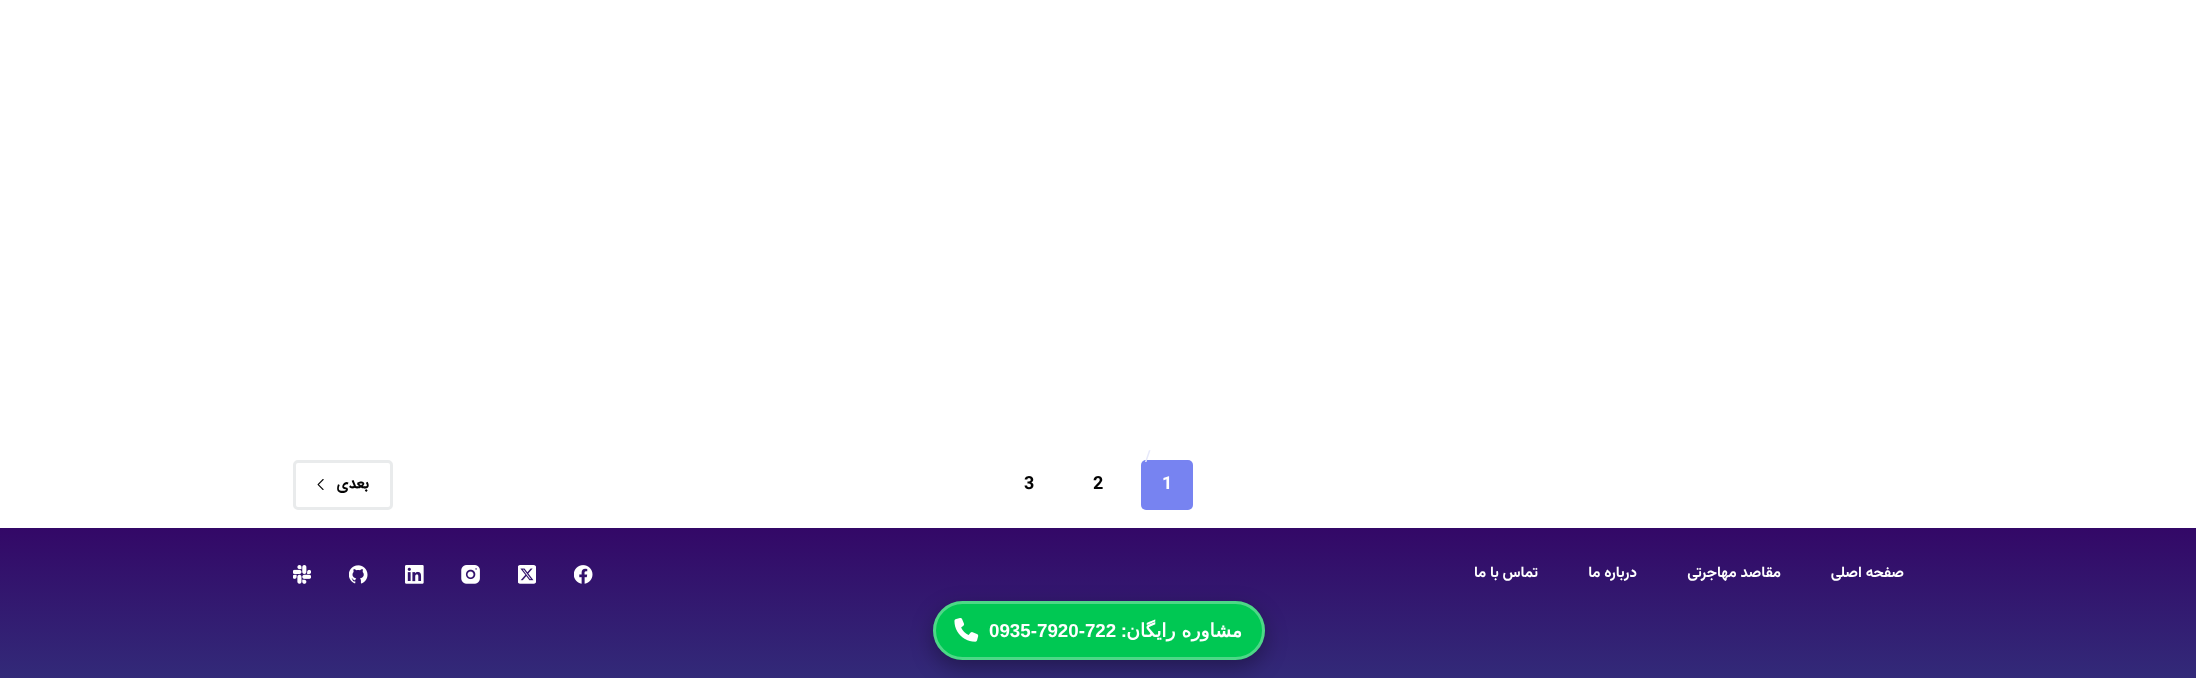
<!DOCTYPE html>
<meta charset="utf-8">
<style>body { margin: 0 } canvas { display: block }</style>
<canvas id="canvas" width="2196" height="678"></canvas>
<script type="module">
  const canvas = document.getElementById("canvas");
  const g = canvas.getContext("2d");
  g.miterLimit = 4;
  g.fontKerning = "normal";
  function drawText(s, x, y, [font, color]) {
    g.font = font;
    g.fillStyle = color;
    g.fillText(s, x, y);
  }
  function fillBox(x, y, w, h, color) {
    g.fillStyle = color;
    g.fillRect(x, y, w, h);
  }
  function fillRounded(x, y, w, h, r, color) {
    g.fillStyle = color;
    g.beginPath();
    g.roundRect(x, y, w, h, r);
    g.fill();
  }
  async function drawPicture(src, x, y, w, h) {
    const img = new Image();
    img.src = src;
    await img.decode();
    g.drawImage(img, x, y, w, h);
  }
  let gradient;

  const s1 = ["600 15px Vazirmatn", "#E6E8FA"];
  const s2 = ["bold 18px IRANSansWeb", "#FFFFFF"];
  const s3 = ["bold 18px IRANSansWeb", "#040404"];
  const s4 = ["bold 15px IRANSansWeb", "#040404"];
  const s5 = ["bold 15px Vazirmatn", "#FFFFFF"];
  const s6 = ["bold 18.75px DejaVu Sans", "#FFFFFF"];
  const s7 = ["bold 18.75px Liberation Sans", "#FFFFFF"];

  fillBox(0, 0, 2196, 678, "#FFFFFF");
  fillRounded(1141, 460, 52, 50, 5, "#7783F1");
  drawText("/", 1145, 461, s1);
  drawText("1", 1162, 489, s2);
  drawText("2", 1093, 489, s3);
  drawText("3", 1024, 489, s3);
  g.beginPath();
  g.roundRect(294.5, 461.5, 97, 47, 3.5);
  g.strokeStyle = "#E9EBEC";
  g.lineWidth = 3;
  g.stroke();
  g.direction = "rtl";
  drawText("بعدی", 369, 488, s4);
  await drawPicture("pic1.png", 317, 479, 7, 11);
  gradient = g.createLinearGradient(1098, 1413, 1098, 528);
  gradient.addColorStop(0, "#30CFD0");
  gradient.addColorStop(1, "#330867");
  g.fillStyle = gradient;
  g.fillRect(0, 528, 2196, 150);
  drawText("صفحه اصلی", 1904, 577, s5);
  drawText("مقاصد مهاجرتی", 1781, 577, s5);
  drawText("درباره ما", 1637, 577, s5);
  drawText("تماس با ما", 1538, 577, s5);
  await drawPicture("pic2.png", 574, 565, 19, 19);
  await drawPicture("pic3.png", 518, 565, 18, 19);
  await drawPicture("pic4.png", 461, 565, 19, 19);
  await drawPicture("pic5.png", 405, 565, 19, 19);
  await drawPicture("pic6.png", 349, 565, 19, 19);
  await drawPicture("pic7.png", 293, 565, 18, 19);
  g.fillStyle = "rgba(0, 0, 0, 0.32)";
  g.filter = "blur(11px)";
  g.beginPath();
  g.roundRect(933, 609, 332, 59, 29.5);
  g.fill();
  g.filter = "none";
  fillRounded(933, 601, 332, 59, 29.5, "#00C853");
  g.beginPath();
  g.roundRect(934.5, 602.5, 329, 56, 28);
  g.strokeStyle = "rgba(255, 255, 255, 0.3)";
  g.stroke();
  drawText("مشاوره رایگان", 1242, 637, s6);
  drawText(":", 1127, 637, s7);
  g.direction = "ltr";
  drawText("0935-7920-722", 989, 637, s7);
  await drawPicture("pic8.png", 954, 618, 25, 24);
</script>
